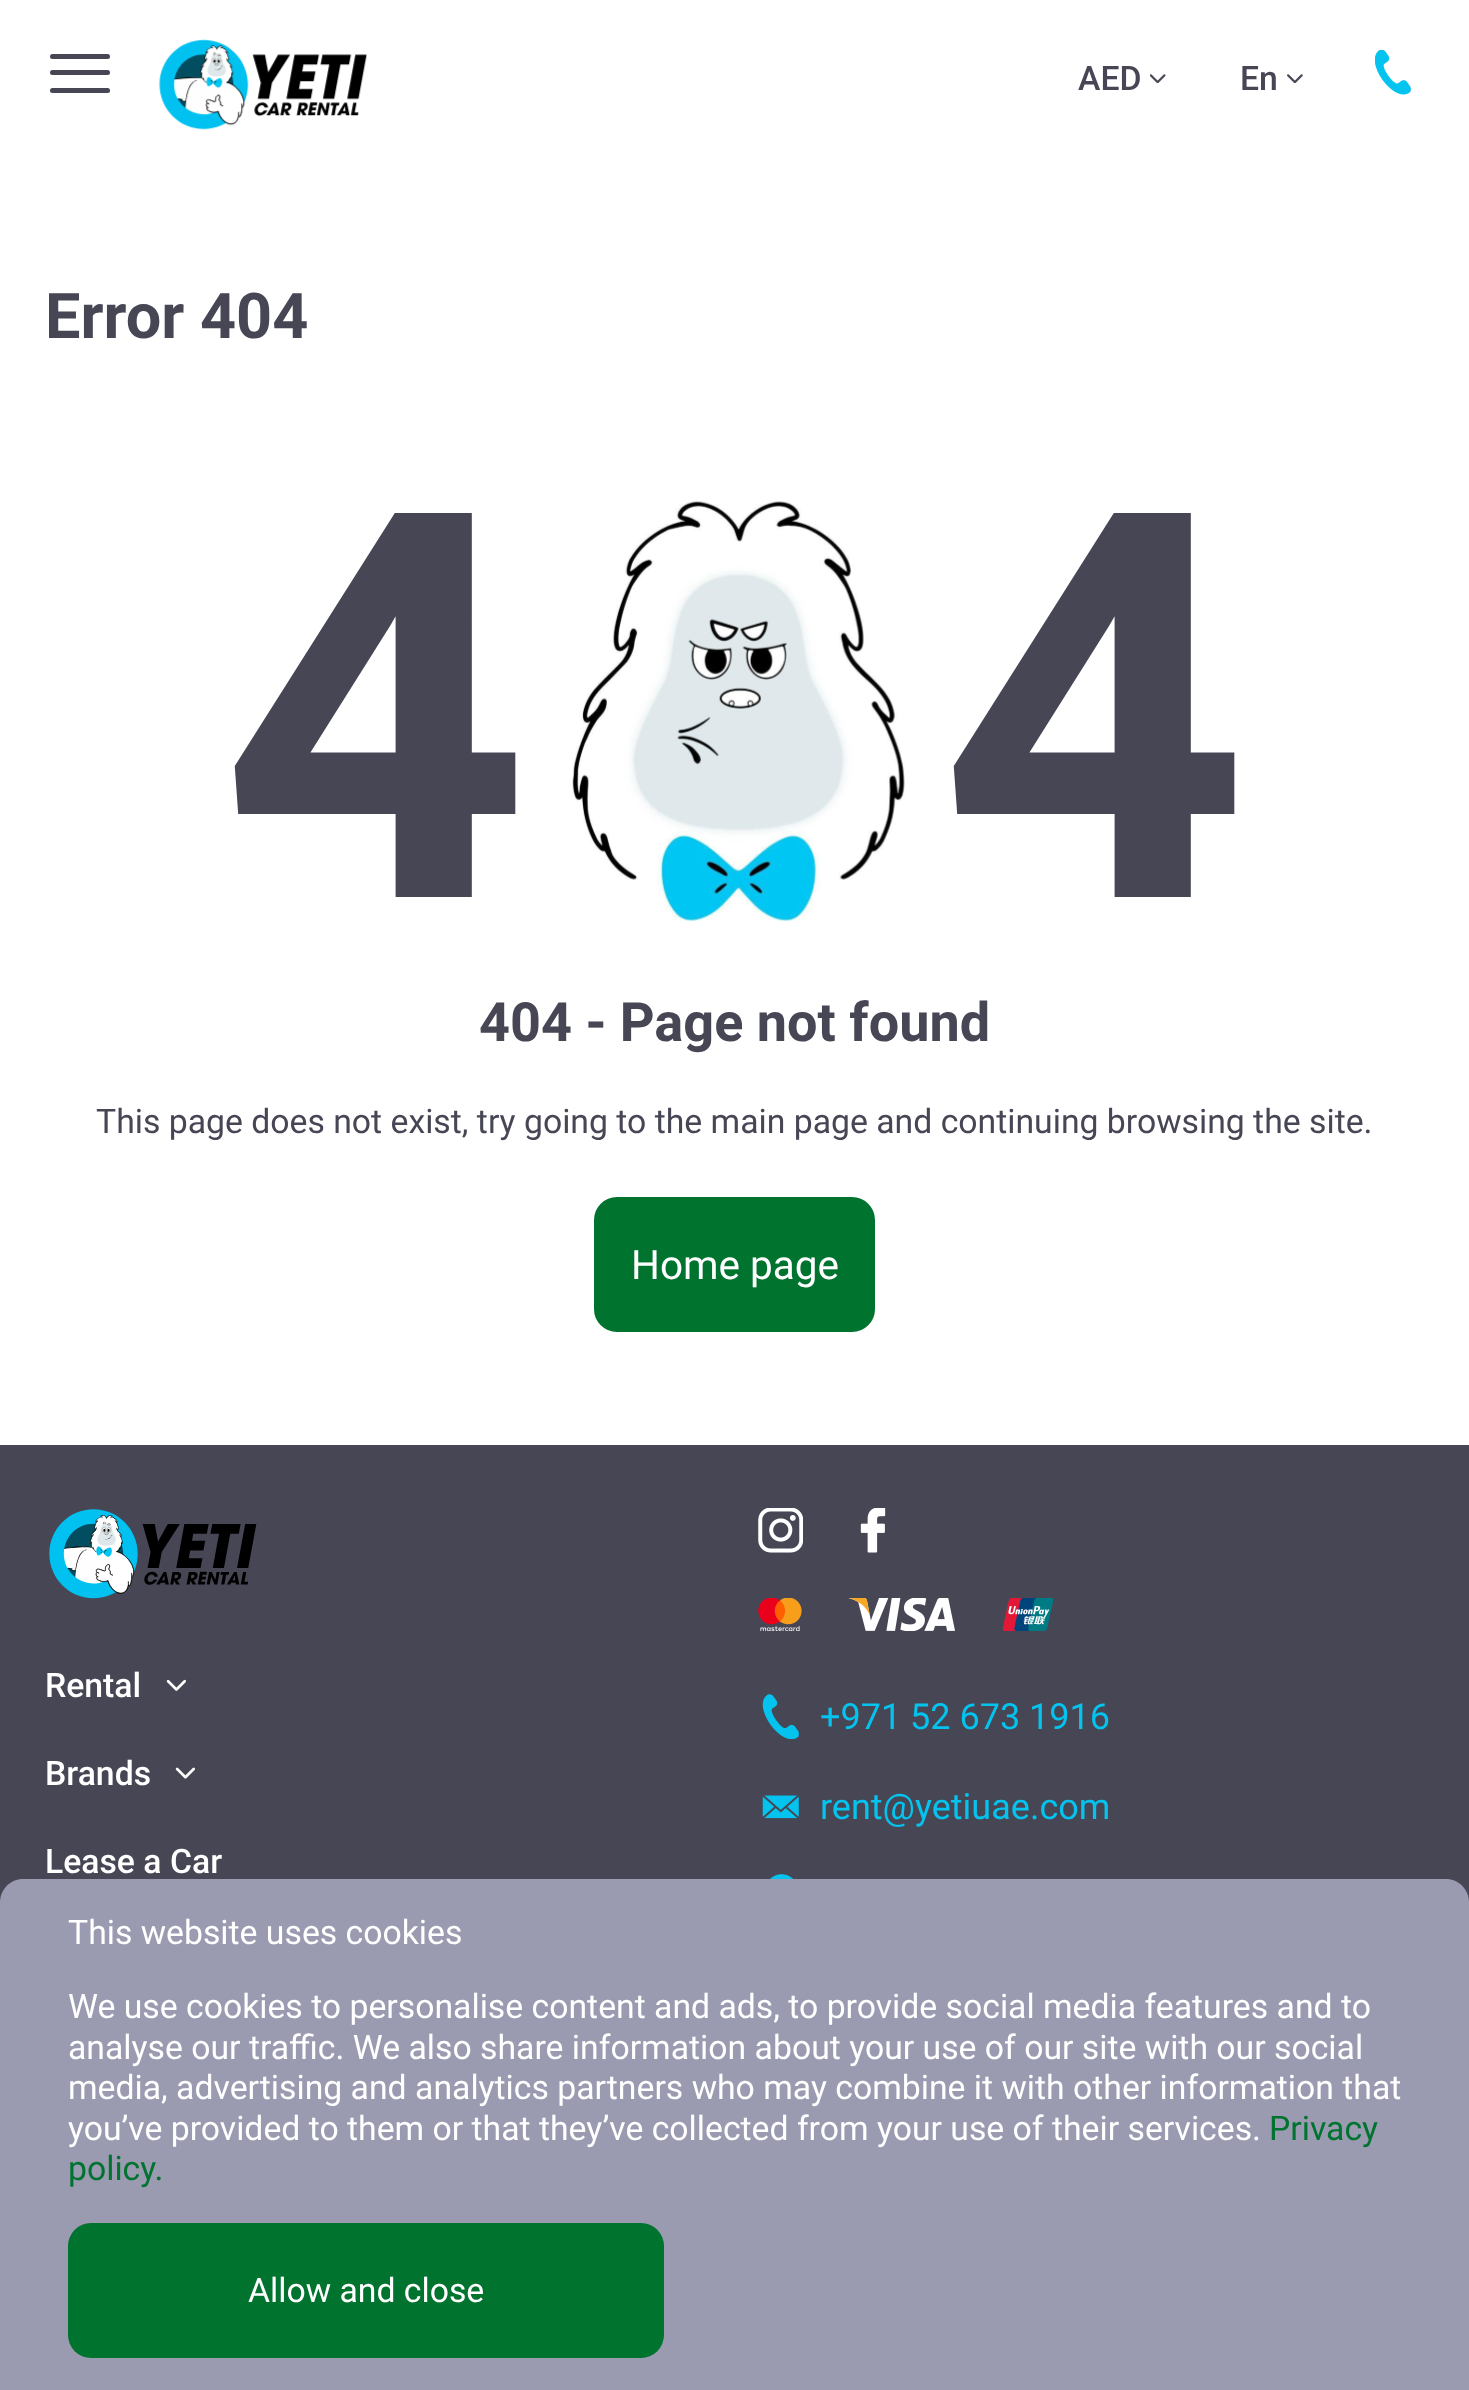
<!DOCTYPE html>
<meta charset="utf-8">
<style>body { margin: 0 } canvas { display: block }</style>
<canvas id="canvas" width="1469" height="2390"></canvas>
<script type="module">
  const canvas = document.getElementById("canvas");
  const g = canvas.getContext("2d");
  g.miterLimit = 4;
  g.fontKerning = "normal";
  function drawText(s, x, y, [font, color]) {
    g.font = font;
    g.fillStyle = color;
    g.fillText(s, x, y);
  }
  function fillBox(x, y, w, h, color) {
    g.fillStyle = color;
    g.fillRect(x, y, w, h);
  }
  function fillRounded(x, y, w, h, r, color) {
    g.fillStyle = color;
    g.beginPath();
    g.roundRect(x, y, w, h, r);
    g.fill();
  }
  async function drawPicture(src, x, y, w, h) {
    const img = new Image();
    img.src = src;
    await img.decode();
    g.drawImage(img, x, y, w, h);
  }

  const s1 = ["500 33.75px Roboto", "#464655"];
  const s2 = ["bold 63px Roboto", "#464655"];
  const s3 = ["bold 540px 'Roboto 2'", "#464655"];
  const s4 = ["bold 54px 'Roboto 2'", "#464655"];
  const s5 = ["33.75px Roboto", "#464655"];
  const s6 = ["40.5px Roboto", "#FFFFFF"];
  const s7 = ["500 33.75px Roboto", "#FFFFFF"];
  const s8 = ["36px Roboto", "#04C4EF"];
  const s9 = ["33.75px Roboto", "#FFFFFF"];
  const s10 = ["33.75px Roboto", "#00732F"];

  fillBox(0, 0, 1469, 2390, "#FFFFFF");
  fillRounded(50, 54, 60, 5, 2.5, "#464655");
  fillRounded(50, 70, 60, 5, 2.5, "#464655");
  fillRounded(50, 88, 60, 5, 2.5, "#464655");
  await drawPicture("pic1.png", 159, 39, 209, 91);
  drawText("AED", 1078, 90, s1);
  await drawPicture("pic2.png", 1150, 74, 16, 9);
  drawText("En", 1240, 90, s1);
  await drawPicture("pic3.png", 1287, 74, 16, 9);
  await drawPicture("pic4.png", 1375, 50, 36, 45);
  drawText("Error 404", 45, 338, s2);
  drawText("4", 220, 897, s3);
  await drawPicture("pic5.png", 572, 500, 333, 421);
  drawText("4", 939, 897, s3);
  drawText("404 - Page not found", 479, 1041, s4);
  drawText("This page does not exist, try going to the main page and continuing browsing the site.", 96, 1133, s5);
  g.fillStyle = "#00732F";
  g.beginPath();
  g.roundRect(595, 1198, 279, 133, 22);
  g.fill();
  g.strokeStyle = "#00732F";
  g.lineWidth = 2;
  g.stroke();
  drawText("Home page", 631, 1279, s6);
  fillBox(0, 1445, 1469, 457, "#464655");
  await drawPicture("pic6.png", 49, 1509, 208, 90);
  drawText("Rental", 45, 1697, s7);
  await drawPicture("pic7.png", 166, 1679, 20, 12);
  drawText("Brands", 45, 1785, s7);
  await drawPicture("pic8.png", 175, 1767, 20, 12);
  drawText("Lease a Car", 45, 1873, s7);
  await drawPicture("pic9.png", 758, 1508, 45, 45);
  await drawPicture("pic10.png", 860, 1508, 26, 45);
  await drawPicture("pic11.png", 758, 1598, 44, 33);
  await drawPicture("pic12.png", 849, 1598, 106, 33);
  await drawPicture("pic13.png", 1003, 1598, 50, 33);
  await drawPicture("pic14.png", 762, 1694, 37, 45);
  drawText("+971 52 673 1916", 820, 1729, s8);
  await drawPicture("pic15.png", 762, 1795, 37, 24);
  drawText("rent@yetiuae.com", 820, 1819, s8);
  await drawPicture("pic16.png", 770, 1874, 23, 5);
  g.fillStyle = "#9A9AB1";
  g.beginPath();
  g.moveTo(23, 1879);
  g.lineTo(1446, 1879);
  g.bezierCurveTo(1458.5, 1879, 1469, 1889.5, 1469, 1902);
  g.lineTo(1469, 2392);
  g.lineTo(0, 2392);
  g.lineTo(0, 1902);
  g.bezierCurveTo(0, 1889.5, 10.5, 1879, 23, 1879);
  g.closePath();
  g.fill();
  drawText("This website uses cookies", 68, 1944, s9);
  drawText("We use cookies to personalise content and ads, to provide social media features and to", 68, 2018, s9);
  drawText("analyse our traffic. We also share information about your use of our site with our social", 68, 2059, s9);
  drawText("media, advertising and analytics partners who may combine it with other information that", 68, 2099, s9);
  drawText("you’ve provided to them or that they’ve collected from your use of their services.", 68, 2140, s9);
  drawText("Privacy", 1269, 2140, s10);
  drawText("policy.", 68, 2180, s10);
  fillRounded(68, 2223, 596, 135, 23, "#00732F");
  drawText("Allow and close", 248, 2302, s9);
</script>
